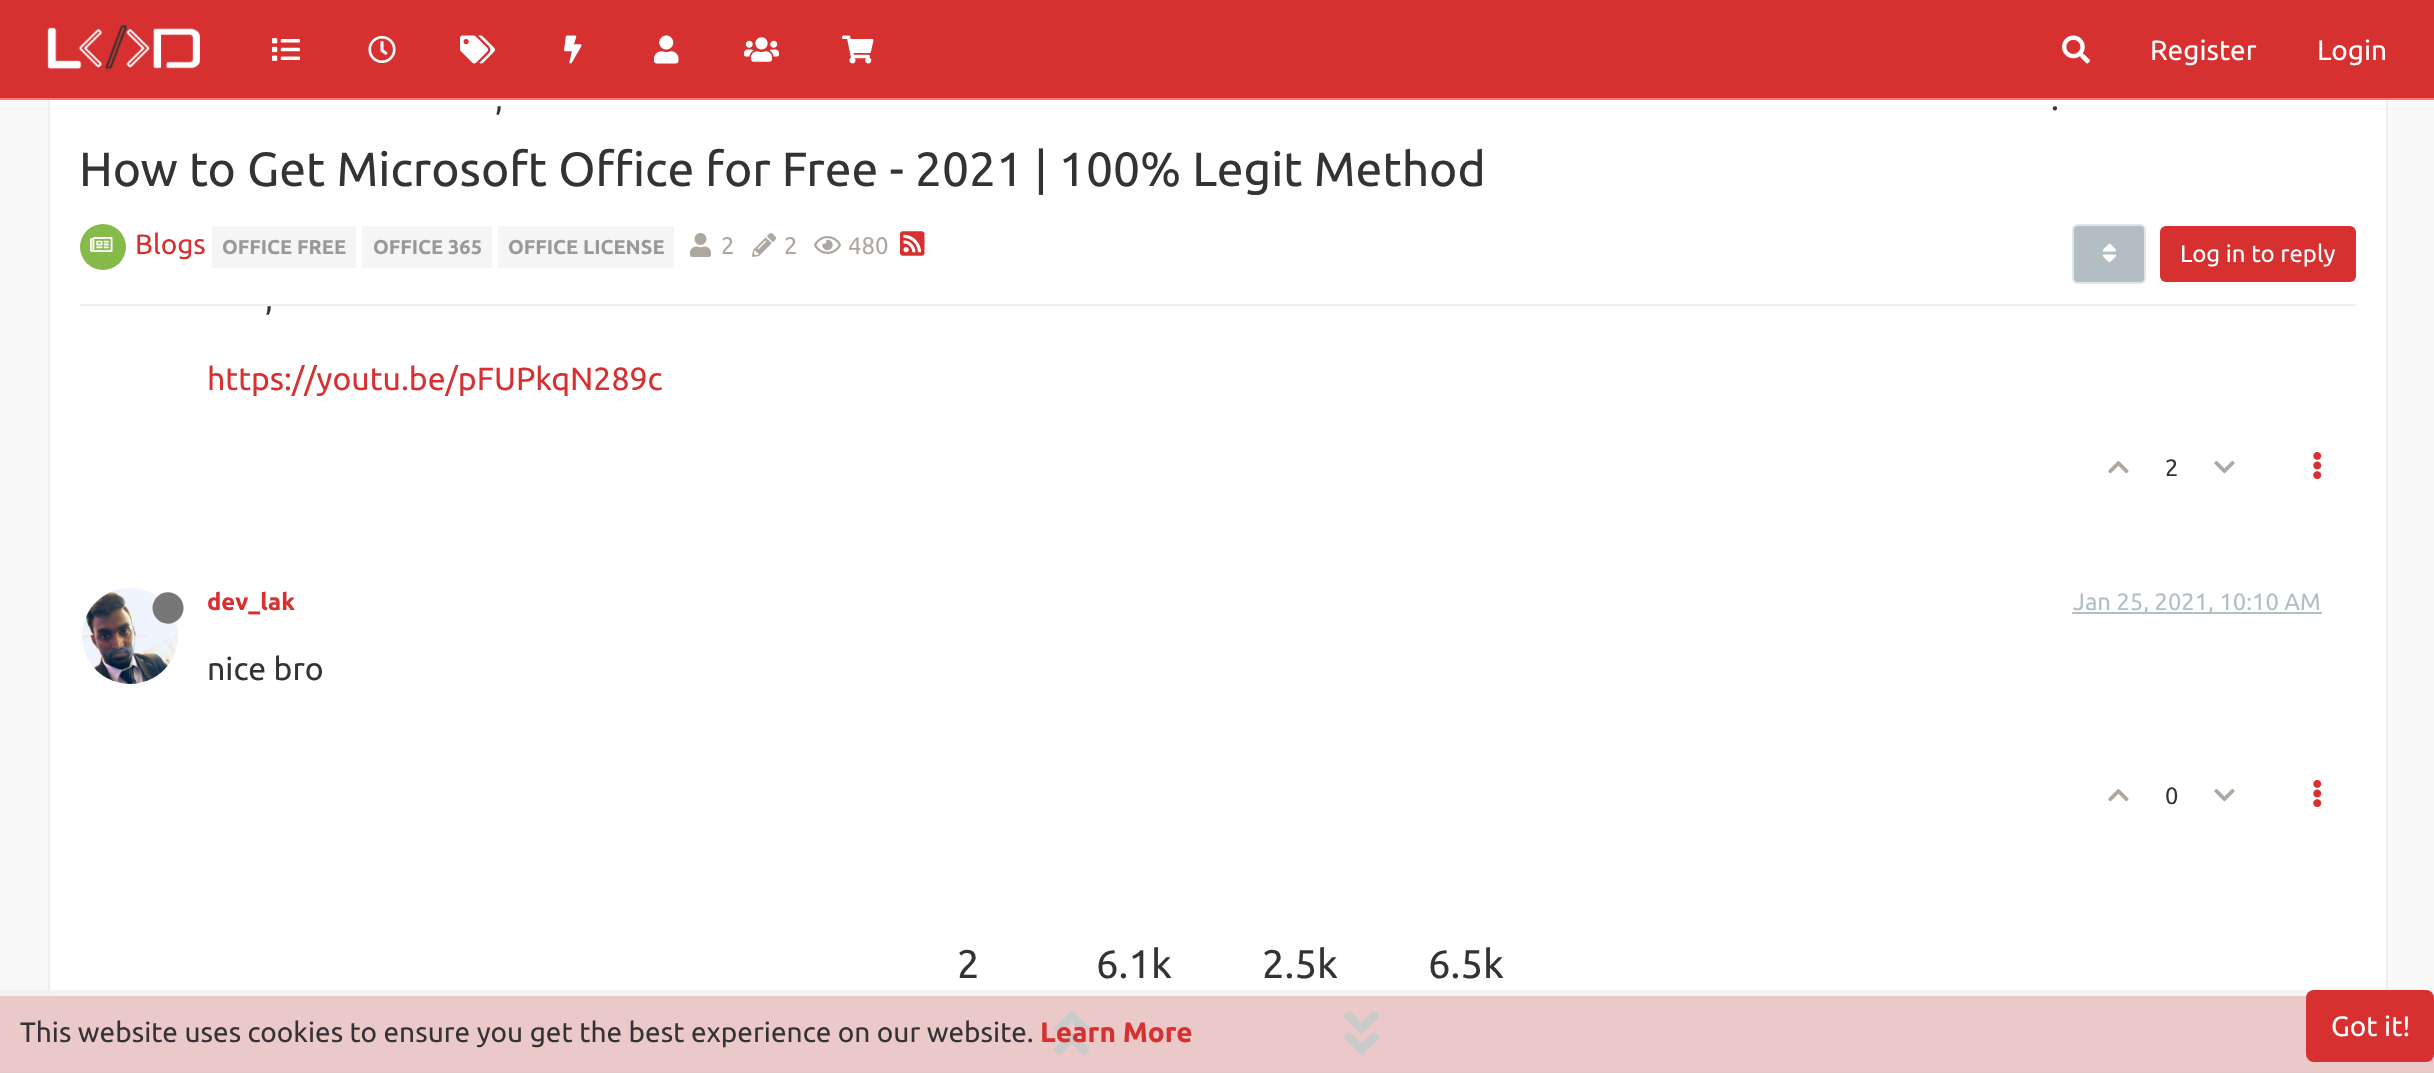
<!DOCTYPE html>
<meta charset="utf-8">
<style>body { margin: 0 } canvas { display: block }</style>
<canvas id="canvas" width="2434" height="1073"></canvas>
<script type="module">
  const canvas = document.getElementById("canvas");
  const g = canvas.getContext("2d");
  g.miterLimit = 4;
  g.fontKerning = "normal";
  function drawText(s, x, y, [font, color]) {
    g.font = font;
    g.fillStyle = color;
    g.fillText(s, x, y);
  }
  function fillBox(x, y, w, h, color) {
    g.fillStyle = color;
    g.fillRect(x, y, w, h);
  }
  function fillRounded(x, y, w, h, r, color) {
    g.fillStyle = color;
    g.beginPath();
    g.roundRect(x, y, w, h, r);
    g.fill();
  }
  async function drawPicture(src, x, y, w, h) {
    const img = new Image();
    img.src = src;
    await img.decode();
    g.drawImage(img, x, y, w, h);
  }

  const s1 = ["28px Ubuntu", "#FFFFFF"];
  const s2 = ["32px Ubuntu", "#333333"];
  const s3 = ["32px Ubuntu", "#D63031"];
  const s4 = ["23.75px Ubuntu", "#333333"];
  const s5 = ["bold 23.75px Ubuntu", "#D63031"];
  const s6 = ["23.75px Ubuntu", "#B2BEC3"];
  const s7 = ["48px Ubuntu", "#333333"];
  const s8 = ["28px Ubuntu", "#D63031"];
  const s9 = ["bold 20px Ubuntu", "#999999"];
  const s10 = ["24px Ubuntu", "#AEA79F"];
  const s11 = ["24px Ubuntu", "#FFFFFF"];
  const s12 = ["40px Ubuntu", "#333333"];
  const s13 = ["28px Ubuntu", "#333333"];
  const s14 = ["bold 28px Ubuntu", "#D63031"];

  fillBox(0, 0, 2434, 1073, "#F9F9F9");
  fillBox(50, 100, 2336, 896, "#FFFFFF");
  g.strokeStyle = "#EEEEEE";
  g.lineWidth = 2;
  g.strokeRect(49, -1, 2338, 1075);
  fillBox(0, 0, 2434, 98, "#D63031");
  fillBox(0, 98, 2434, 2, "#FF7675");
  await drawPicture("pic1.png", 47, 24, 153, 45);
  await drawPicture("pic2.png", 272, 38, 28, 23);
  await drawPicture("pic3.png", 368, 36, 28, 27);
  await drawPicture("pic4.png", 460, 35, 35, 29);
  await drawPicture("pic5.png", 564, 35, 18, 29);
  await drawPicture("pic6.png", 654, 35, 25, 29);
  await drawPicture("pic7.png", 744, 37, 35, 25);
  await drawPicture("pic8.png", 842, 35, 32, 29);
  await drawPicture("pic9.png", 2062, 35, 28, 29);
  drawText("Register", 2150, 60, s1);
  drawText("Login", 2317, 60, s1);
  drawText(",", 495, 110, s2);
  drawText(".", 2051, 110, s2);
  drawText(",", 265, 310, s2);
  drawText("https://youtu.be/pFUPkqN289c", 207, 390, s3);
  await drawPicture("pic10.png", 2108, 460, 21, 14);
  drawText("2", 2165, 476, s4);
  await drawPicture("pic11.png", 2214, 461, 21, 13);
  await drawPicture("pic12.png", 2313, 451, 9, 29);
  await drawPicture("pic13.png", 82, 588, 96, 96);
  g.fillStyle = "#777777";
  g.beginPath();
  g.moveTo(157, 597);
  g.bezierCurveTo(167.5, 586.5, 184.5, 595, 183.5, 609.5);
  g.bezierCurveTo(183, 613, 181.5, 616.5, 179, 619);
  g.bezierCurveTo(168.5, 629.5, 151.5, 621, 152.5, 606.5);
  g.bezierCurveTo(153, 603, 154.5, 599.5, 157, 597);
  g.closePath();
  g.fill();
  drawText("dev_lak", 207, 610, s5);
  fillBox(2072, 612, 250, 2, "#B2BEC3");
  drawText("Jan 25, 2021, 10:10 AM", 2073, 610, s6);
  drawText("nice bro", 207, 680, s2);
  await drawPicture("pic10.png", 2108, 788, 21, 14);
  drawText("0", 2165, 804, s4);
  await drawPicture("pic11.png", 2214, 789, 21, 13);
  await drawPicture("pic12.png", 2313, 779, 9, 29);
  drawText("How to Get Microsoft Office for Free - 2021 | 100% Legit Method", 79, 186, s7);
  fillBox(80, 304, 2276, 2, "#EEEEEE");
  g.fillStyle = "#86BA4B";
  g.beginPath();
  g.arc(103, 247, 23, 0, Math.PI * 2);
  g.fill();
  await drawPicture("pic14.png", 90, 237, 23, 15);
  drawText("Blogs", 135, 254, s8);
  fillBox(212, 226, 144, 42, "#F5F5F5");
  drawText("OFFICE FREE", 222, 254, s9);
  fillBox(362, 226, 130, 42, "#F5F5F5");
  drawText("OFFICE 365", 373, 254, s9);
  fillBox(498, 226, 176, 42, "#F5F5F5");
  drawText("OFFICE LICENSE", 508, 254, s9);
  await drawPicture("pic15.png", 690, 233, 21, 24);
  drawText("2", 721, 254, s10);
  await drawPicture("pic16.png", 752, 233, 24, 24);
  drawText("2", 784, 254, s10);
  await drawPicture("pic17.png", 814, 236, 27, 18);
  drawText("480", 848, 254, s10);
  await drawPicture("pic18.png", 900, 231, 25, 25);
  g.fillStyle = "#B2BEC3";
  g.beginPath();
  g.roundRect(2073, 225, 72, 58, 5);
  g.fill();
  g.strokeStyle = "#DFE6E9";
  g.stroke();
  await drawPicture("pic19.png", 2102, 243, 15, 20);
  fillRounded(2160, 226, 196, 56, 6, "#D63031");
  drawText("Log in to reply", 2180, 262, s11);
  fillBox(0, 996, 2434, 76, "#D63031");
  fillBox(0, 1072, 2434, 1, "#B6292A");
  await drawPicture("pic20.png", 1054, 1011, 36, 44);
  await drawPicture("pic21.png", 1344, 1011, 36, 44);
  drawText("2", 957, 978, s12);
  drawText("6.1k", 1096, 978, s12);
  drawText("2.5k", 1262, 978, s12);
  drawText("6.5k", 1428, 978, s12);
  fillBox(0, 990, 2434, 83, "rgba(240, 240, 240, 0.8)");
  drawText("This website uses cookies to ensure you get the best experience on our website.", 20, 1042, s13);
  drawText("Learn More", 1040, 1042, s14);
  fillRounded(2306, 990, 128, 72, 8, "#D63031");
  drawText("Got it!", 2331, 1036, s1);
</script>
